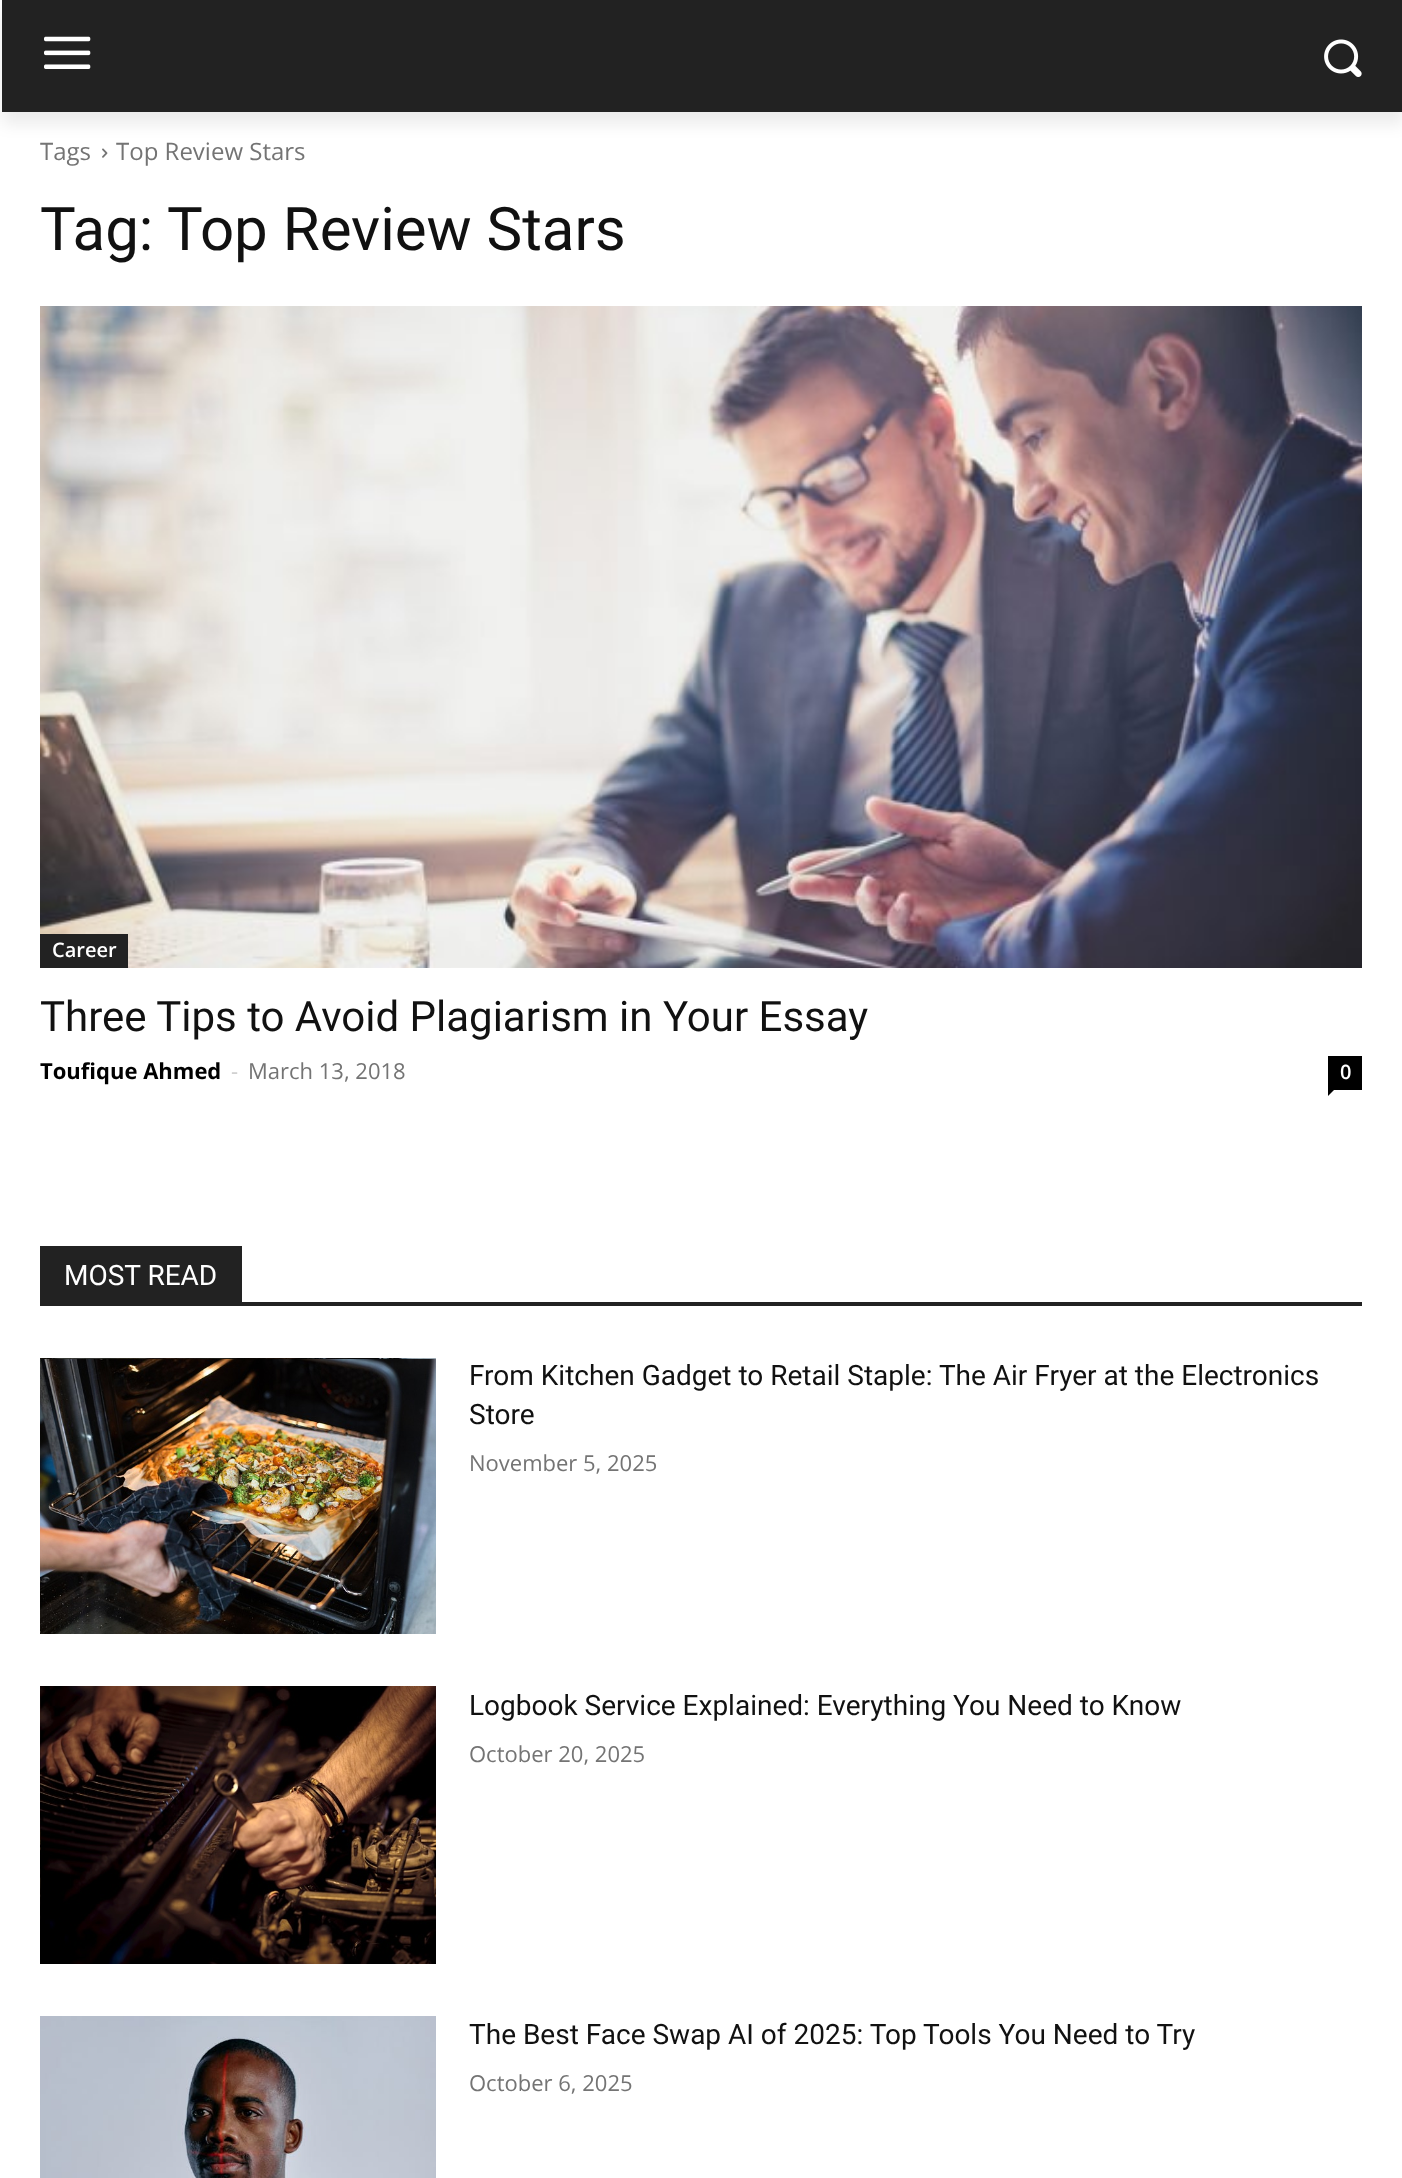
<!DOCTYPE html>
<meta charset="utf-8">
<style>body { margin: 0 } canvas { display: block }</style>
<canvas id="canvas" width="1402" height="2178"></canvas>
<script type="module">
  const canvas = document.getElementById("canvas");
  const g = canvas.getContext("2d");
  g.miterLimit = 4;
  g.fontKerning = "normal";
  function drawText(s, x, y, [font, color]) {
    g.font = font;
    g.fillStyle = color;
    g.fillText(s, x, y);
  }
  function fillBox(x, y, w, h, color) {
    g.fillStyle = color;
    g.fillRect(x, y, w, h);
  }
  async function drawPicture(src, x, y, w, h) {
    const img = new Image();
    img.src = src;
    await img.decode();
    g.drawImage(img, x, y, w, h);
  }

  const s1 = ["24px Open Sans", "#747474"];
  const s2 = ["60px Roboto", "#111111"];
  const s3 = ["600 20px Open Sans", "#FFFFFF"];
  const s4 = ["42px Roboto", "#111111"];
  const s5 = ["bold 22px Open Sans", "#000000"];
  const s6 = ["22px Open Sans", "#CCCCCC"];
  const s7 = ["22px Open Sans", "#747474"];
  const s8 = ["28px Roboto", "#FFFFFF"];
  const s9 = ["28px Roboto", "#111111"];

  fillBox(0, 0, 1402, 2178, "#FFFFFF");
  fillBox(2, 0, 1400, 112, "#222222");
  await drawPicture("pic1.png", 44, 36, 47, 33);
  await drawPicture("pic2.png", 1324, 39, 38, 38);
  await drawPicture("pic3.png", 102, 148, 6, 10);
  g.save();
  g.beginPath();
  g.moveTo(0, 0);
  g.lineTo(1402, 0);
  g.lineTo(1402, 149);
  g.lineTo(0, 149);
  g.closePath();
  g.moveTo(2, 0);
  g.lineTo(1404, 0);
  g.lineTo(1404, 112);
  g.lineTo(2, 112);
  g.closePath();
  g.clip("evenodd");
  g.fillStyle = "rgba(0, 0, 0, 0.08)";
  g.filter = "blur(8px)";
  g.beginPath();
  g.rect(2, 12, 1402, 112);
  g.fill();
  g.filter = "none";
  g.restore();
  drawText("Tags", 40, 160, s1);
  drawText("Top Review Stars", 116, 160, s1);
  drawText("Tag:", 40, 250, s2);
  drawText("Top Review Stars", 167, 250, s2);
  await drawPicture("pic4.png", 40, 306, 1322, 662);
  fillBox(40, 934, 88, 34, "#222222");
  drawText("Career", 52, 957, s3);
  drawText("Three Tips to Avoid Plagiarism in Your Essay", 40, 1031, s4);
  drawText("Toufique Ahmed", 40, 1079, s5);
  drawText("-", 231, 1079, s6);
  drawText("March 13, 2018", 248, 1079, s7);
  fillBox(1328, 1056, 34, 34, "#000000");
  drawText("0", 1340, 1079, s3);
  g.fillStyle = "#000000";
  g.beginPath();
  g.moveTo(1328, 1090);
  g.lineTo(1334, 1090);
  g.lineTo(1328, 1096);
  g.closePath();
  g.fill();
  fillBox(40, 1302, 1322, 4, "#222222");
  fillBox(40, 1246, 202, 56, "#222222");
  drawText("MOST READ", 64, 1285, s8);
  await drawPicture("pic5.png", 40, 1358, 396, 276);
  drawText("From Kitchen Gadget to Retail Staple: The Air Fryer at the Electronics", 469, 1385, s9);
  drawText("Store", 469, 1424, s9);
  drawText("November 5, 2025", 469, 1471, s7);
  await drawPicture("pic6.png", 40, 1686, 396, 278);
  drawText("Logbook Service Explained: Everything You Need to Know", 469, 1715, s9);
  drawText("October 20, 2025", 469, 1762, s7);
  await drawPicture("pic7.png", 40, 2016, 396, 162);
  drawText("The Best Face Swap AI of 2025: Top Tools You Need to Try", 469, 2044, s9);
  drawText("October 6, 2025", 469, 2091, s7);
</script>
